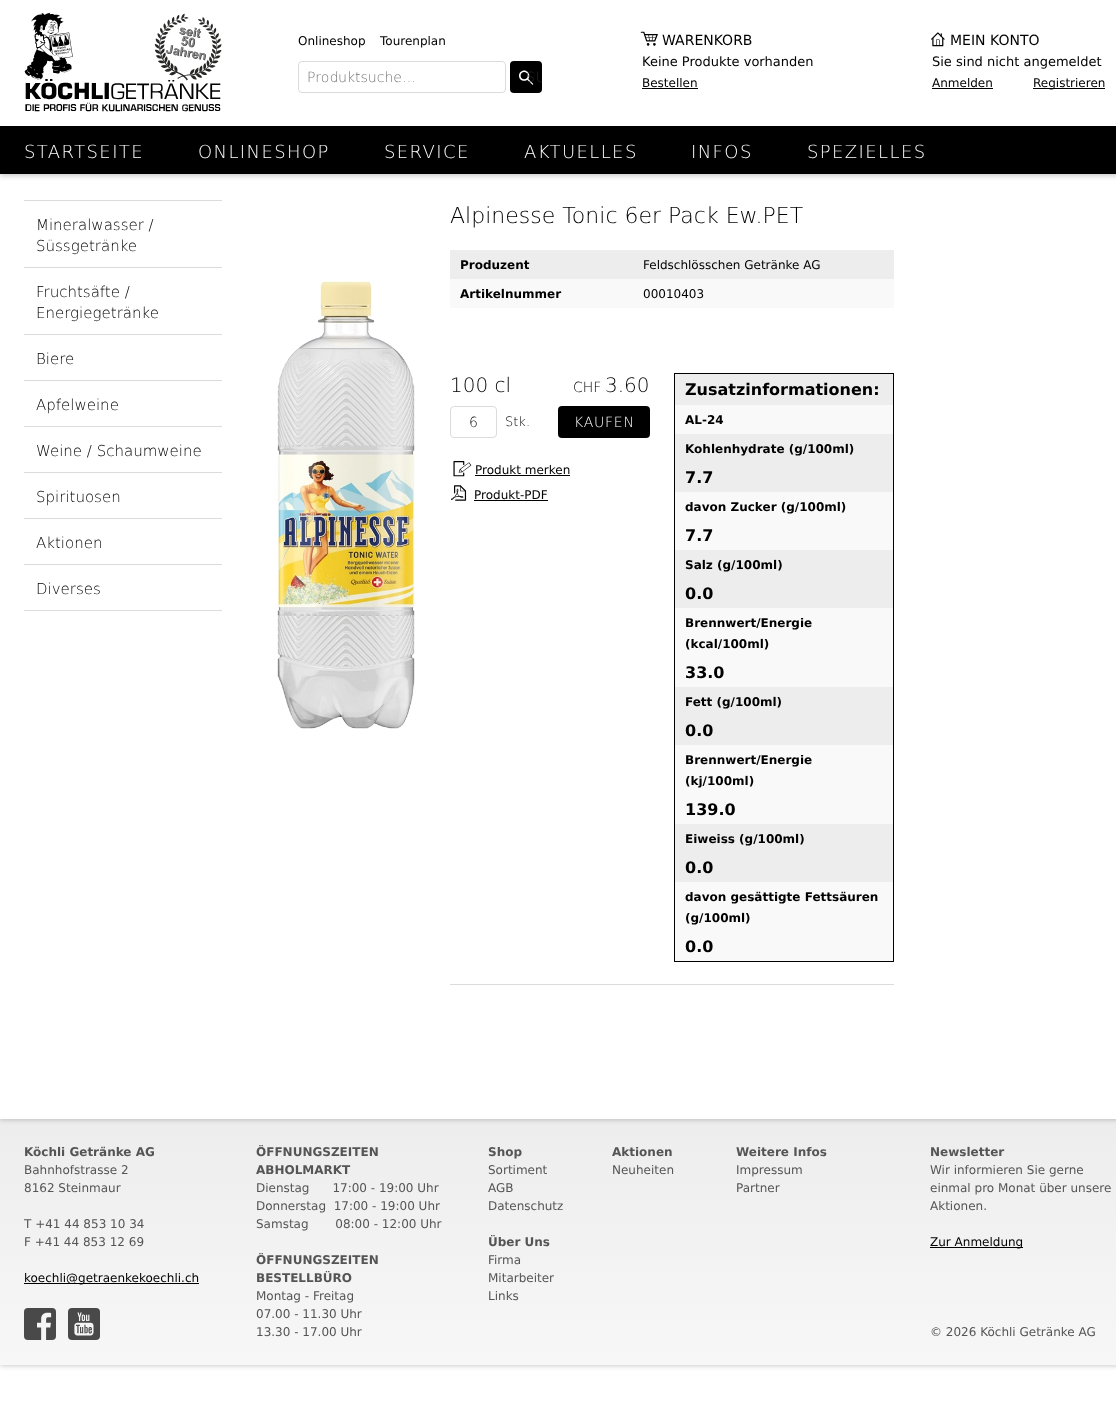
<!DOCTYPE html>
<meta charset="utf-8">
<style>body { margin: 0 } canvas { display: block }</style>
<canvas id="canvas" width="1116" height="1403"></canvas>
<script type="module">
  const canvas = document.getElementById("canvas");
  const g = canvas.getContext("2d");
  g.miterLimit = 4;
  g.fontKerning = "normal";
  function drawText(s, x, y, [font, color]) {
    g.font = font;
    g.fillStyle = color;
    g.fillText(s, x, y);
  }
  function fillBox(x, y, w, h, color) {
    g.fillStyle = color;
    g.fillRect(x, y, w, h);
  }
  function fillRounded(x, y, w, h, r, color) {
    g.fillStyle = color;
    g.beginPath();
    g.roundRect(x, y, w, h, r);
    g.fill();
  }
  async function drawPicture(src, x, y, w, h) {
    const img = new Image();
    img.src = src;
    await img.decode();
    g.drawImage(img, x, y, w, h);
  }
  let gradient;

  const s1 = ["12px DejaVu Sans", "#000000"];
  const s2 = ["200 14px DejaVu Sans", "#757575"];
  const s3 = ["200 14px DejaVu Sans", "#292929"];
  const s4 = ["14px DejaVu Sans", "#000000"];
  const s5 = ["13px DejaVu Sans", "#000000"];
  const s6 = ["200 18px DejaVu Sans", "#FFFFFF"];
  const s7 = ["200 15px DejaVu Sans", "#000000"];
  const s8 = ["200 22px DejaVu Sans", "#000000"];
  const s9 = ["bold 12px DejaVu Sans", "#000000"];
  const s10 = ["200 20px DejaVu Sans", "#000000"];
  const s11 = ["200 14px DejaVu Sans", "#000000"];
  const s12 = ["200 13px DejaVu Sans", "#000000"];
  const s13 = ["200 14px DejaVu Sans", "#FFFFFF"];
  const s14 = ["bold 16px DejaVu Sans", "#000000"];
  const s15 = ["bold 12px DejaVu Sans", "#555555"];
  const s16 = ["12px DejaVu Sans", "#555555"];

  fillBox(0, 0, 1116, 1403, "#FFFFFF");
  g.fillStyle = "rgba(0, 0, 0, 0.2)";
  g.filter = "blur(2.5px)";
  g.beginPath();
  g.rect(0, 1120, 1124, 246);
  g.fill();
  g.filter = "none";
  gradient = g.createLinearGradient(576, 1119, 576, 1365);
  gradient.addColorStop(0, "#EDEDED");
  gradient.addColorStop(1, "#F7F7F7");
  g.fillStyle = gradient;
  g.fillRect(0, 1119, 1116, 246);
  g.fillStyle = "rgba(0, 0, 0, 0.2)";
  g.filter = "blur(2.5px)";
  g.beginPath();
  g.rect(0, 175, 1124, 945);
  g.fill();
  g.filter = "none";
  fillBox(0, 174, 1116, 945, "#FFFFFF");
  g.fillStyle = "rgba(0, 0, 0, 0.2)";
  g.filter = "blur(2.5px)";
  g.beginPath();
  g.rect(0, 128, 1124, 48);
  g.fill();
  g.filter = "none";
  fillBox(0, 124, 1116, 2, "#FFFFFF");
  await drawPicture("pic1.png", 24, 12, 198, 100);
  drawText("Onlineshop", 298, 45, s1);
  drawText("Tourenplan", 380, 45, s1);
  g.beginPath();
  g.roundRect(298.5, 61.5, 207, 31, 3.5);
  g.strokeStyle = "#DBDBDB";
  g.stroke();
  drawText("Produktsuche…", 307, 82, s2);
  await drawPicture("pic2.png", 510, 61, 32, 32);
  g.save();
  g.beginPath();
  g.roundRect(510, 61, 32, 32, 4);
  g.clip();
  g.letterSpacing = "0.75px";
  drawText("SU", 526, 82, s3);
  g.restore();
  await drawPicture("pic3.png", 640, 31, 18, 15);
  drawText("WARENKORB", 662, 45, s4);
  drawText("Keine Produkte vorhanden", 642, 66, s5);
  drawText("Bestellen", 642, 87, s1);
  fillBox(642, 88, 56, 1, "#000000");
  await drawPicture("pic4.png", 931, 32, 14, 15);
  drawText("MEIN KONTO", 950, 45, s4);
  drawText("Sie sind nicht angemeldet", 932, 66, s5);
  drawText("Anmelden", 932, 87, s1);
  fillBox(932, 88, 61, 1, "#000000");
  fillBox(1033, 88, 72, 1, "#000000");
  drawText("Registrieren", 1033, 87, s1);
  fillBox(0, 126, 1116, 48, "#000000");
  g.letterSpacing = "1.4px";
  drawText("STARTSEITE", 24, 158, s6);
  drawText("ONLINESHOP", 198, 158, s6);
  drawText("SERVICE", 384, 158, s6);
  drawText("AKTUELLES", 524, 158, s6);
  drawText("INFOS", 691, 158, s6);
  drawText("SPEZIELLES", 807, 158, s6);
  fillBox(24, 200, 198, 1, "#DBDBDB");
  g.letterSpacing = "0px";
  drawText("Mineralwasser /", 36, 230, s7);
  drawText("Süssgetränke", 36, 251, s7);
  fillBox(24, 267, 198, 1, "#DBDBDB");
  drawText("Fruchtsäfte /", 36, 297, s7);
  drawText("Energiegetränke", 36, 318, s7);
  fillBox(24, 334, 198, 1, "#DBDBDB");
  drawText("Biere", 36, 364, s7);
  fillBox(24, 380, 198, 1, "#DBDBDB");
  drawText("Apfelweine", 36, 410, s7);
  fillBox(24, 426, 198, 1, "#DBDBDB");
  drawText("Weine / Schaumweine", 36, 456, s7);
  fillBox(24, 472, 198, 1, "#DBDBDB");
  drawText("Spirituosen", 36, 502, s7);
  fillBox(24, 518, 198, 1, "#DBDBDB");
  drawText("Aktionen", 36, 548, s7);
  fillBox(24, 564, 198, 1, "#DBDBDB");
  fillBox(24, 610, 198, 1, "#DBDBDB");
  drawText("Diverses", 36, 594, s7);
  await drawPicture("pic5.png", 277, 281, 138, 448);
  drawText("Alpinesse Tonic 6er Pack Ew.PET", 450, 223, s8);
  fillBox(450, 250, 444, 29, "#EDEDED");
  drawText("Produzent", 460, 269, s9);
  drawText("Feldschlösschen Getränke AG", 643, 269, s1);
  fillBox(450, 279, 444, 29, "#F9F9F9");
  drawText("Artikelnummer", 460, 298, s9);
  drawText("00010403", 643, 298, s1);
  drawText("100 cl", 450, 392, s10);
  drawText("CHF", 573, 392, s11);
  drawText("3.60", 605, 392, s10);
  g.beginPath();
  g.roundRect(450.5, 406.5, 46, 31, 3.5);
  g.stroke();
  drawText("6", 469, 427, s11);
  drawText("Stk.", 505, 426, s12);
  fillRounded(558, 406, 92, 32, 4, "#000000");
  g.letterSpacing = "0.75px";
  drawText("KAUFEN", 574, 427, s13);
  g.strokeStyle = "#000000";
  g.strokeRect(674.5, 373.5, 219, 588);
  fillBox(675, 374, 218, 31, "#EDEDED");
  g.letterSpacing = "0px";
  drawText("Zusatzinformationen:", 685, 395, s14);
  fillBox(675, 405, 218, 29, "#F9F9F9");
  drawText("AL-24", 685, 424, s9);
  fillBox(675, 434, 218, 58, "#EDEDED");
  drawText("Kohlenhydrate (g/100ml)", 685, 453, s9);
  drawText("7.7", 685, 483, s14);
  fillBox(675, 492, 218, 58, "#F9F9F9");
  drawText("davon Zucker (g/100ml)", 685, 511, s9);
  drawText("7.7", 685, 541, s14);
  fillBox(675, 550, 218, 58, "#EDEDED");
  drawText("Salz (g/100ml)", 685, 569, s9);
  drawText("0.0", 685, 599, s14);
  fillBox(675, 608, 218, 79, "#F9F9F9");
  drawText("Brennwert/Energie", 685, 627, s9);
  drawText("(kcal/100ml)", 685, 648, s9);
  drawText("33.0", 685, 678, s14);
  fillBox(675, 687, 218, 58, "#EDEDED");
  drawText("Fett (g/100ml)", 685, 706, s9);
  drawText("0.0", 685, 736, s14);
  fillBox(675, 745, 218, 79, "#F9F9F9");
  drawText("Brennwert/Energie", 685, 764, s9);
  drawText("(kj/100ml)", 685, 785, s9);
  drawText("139.0", 685, 815, s14);
  fillBox(675, 824, 218, 58, "#EDEDED");
  drawText("Eiweiss (g/100ml)", 685, 843, s9);
  drawText("0.0", 685, 873, s14);
  fillBox(675, 882, 218, 79, "#F9F9F9");
  drawText("davon gesättigte Fettsäuren", 685, 901, s9);
  drawText("(g/100ml)", 685, 922, s9);
  drawText("0.0", 685, 952, s14);
  await drawPicture("pic6.png", 453, 461, 19, 16);
  drawText("Produkt merken", 475, 474, s1);
  fillBox(475, 475, 95, 1, "#000000");
  await drawPicture("pic7.png", 451, 485, 16, 16);
  drawText("Produkt-PDF", 474, 499, s1);
  fillBox(474, 500, 74, 1, "#000000");
  fillBox(450, 984, 444, 1, "#DBDBDB");
  drawText("Köchli Getränke AG", 24, 1156, s15);
  drawText("Bahnhofstrasse 2", 24, 1174, s16);
  drawText("8162 Steinmaur", 24, 1192, s16);
  drawText("T +41 44 853 10 34", 24, 1228, s16);
  drawText("F +41 44 853 12 69", 24, 1246, s16);
  fillBox(24, 1283, 175, 1, "#000000");
  drawText("koechli@getraenkekoechli.ch", 24, 1282, s1);
  await drawPicture("pic8.png", 24, 1308, 32, 32);
  await drawPicture("pic9.png", 68, 1308, 32, 32);
  drawText("ÖFFNUNGSZEITEN", 256, 1156, s15);
  drawText("ABHOLMARKT", 256, 1174, s15);
  drawText("Dienstag      17:00 - 19:00 Uhr", 256, 1192, s16);
  drawText("Donnerstag  17:00 - 19:00 Uhr", 256, 1210, s16);
  drawText("Samstag       08:00 - 12:00 Uhr", 256, 1228, s16);
  drawText("ÖFFNUNGSZEITEN", 256, 1264, s15);
  drawText("BESTELLBÜRO", 256, 1282, s15);
  drawText("Montag - Freitag", 256, 1300, s16);
  drawText("07.00 - 11.30 Uhr", 256, 1318, s16);
  drawText("13.30 - 17.00 Uhr", 256, 1336, s16);
  drawText("Shop", 488, 1156, s15);
  drawText("Sortiment", 488, 1174, s16);
  drawText("AGB", 488, 1192, s16);
  drawText("Datenschutz", 488, 1210, s16);
  drawText("Aktionen", 612, 1156, s15);
  drawText("Neuheiten", 612, 1174, s16);
  drawText("Weitere Infos", 736, 1156, s15);
  drawText("Impressum", 736, 1174, s16);
  drawText("Partner", 736, 1192, s16);
  drawText("Über Uns", 488, 1246, s15);
  drawText("Firma", 488, 1264, s16);
  drawText("Mitarbeiter", 488, 1282, s16);
  drawText("Links", 488, 1300, s16);
  drawText("Newsletter", 930, 1156, s15);
  drawText("Wir informieren Sie gerne", 930, 1174, s16);
  drawText("einmal pro Monat über unsere", 930, 1192, s16);
  drawText("Aktionen.", 930, 1210, s16);
  fillBox(930, 1247, 93, 1, "#000000");
  drawText("Zur Anmeldung", 930, 1246, s1);
  drawText("© 2026 Köchli Getränke AG", 930, 1336, s16);
</script>
